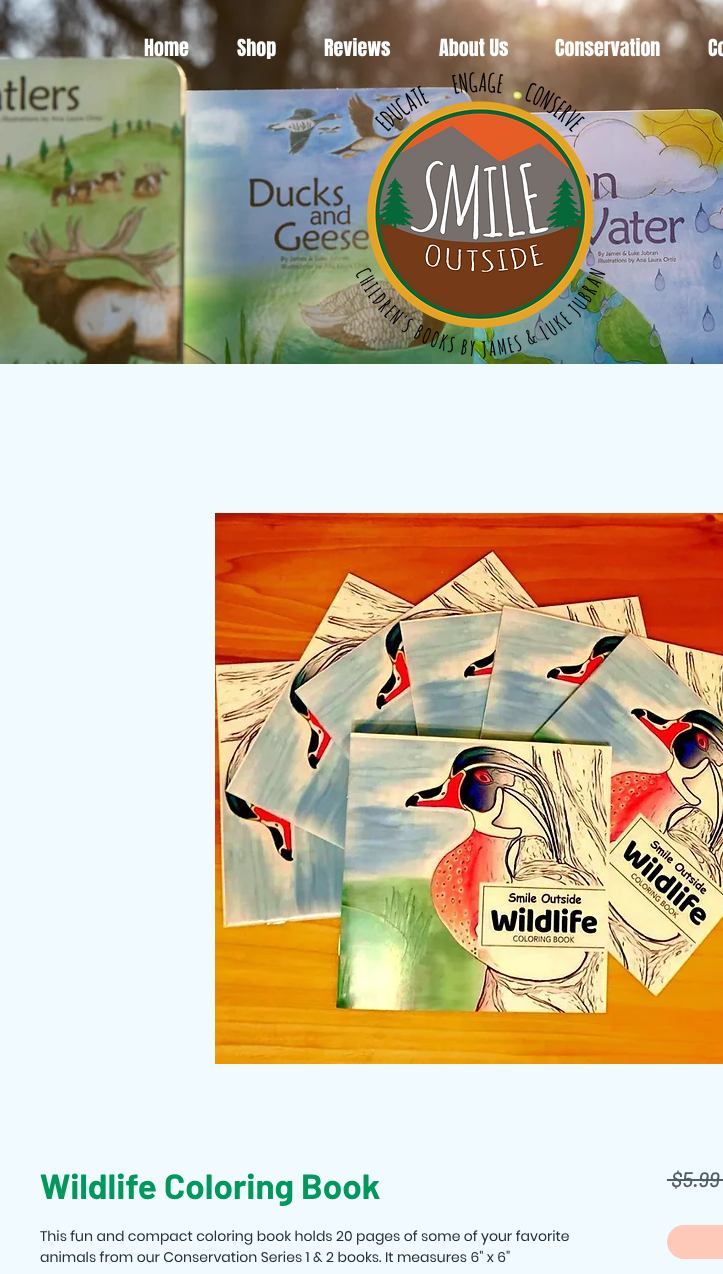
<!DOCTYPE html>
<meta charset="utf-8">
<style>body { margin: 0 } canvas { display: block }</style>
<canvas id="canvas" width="723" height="1274"></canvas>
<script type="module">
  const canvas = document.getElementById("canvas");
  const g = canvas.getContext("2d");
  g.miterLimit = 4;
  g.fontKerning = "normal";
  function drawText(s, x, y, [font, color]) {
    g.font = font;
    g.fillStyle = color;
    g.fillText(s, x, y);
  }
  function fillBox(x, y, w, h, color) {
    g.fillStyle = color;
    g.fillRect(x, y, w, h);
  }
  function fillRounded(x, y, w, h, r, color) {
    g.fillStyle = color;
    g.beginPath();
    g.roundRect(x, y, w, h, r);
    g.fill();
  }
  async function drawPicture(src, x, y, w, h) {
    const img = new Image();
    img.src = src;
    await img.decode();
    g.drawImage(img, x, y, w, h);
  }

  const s1 = ["20px Anton", "#FFFFFF"];
  const s2 = ["bold 35px Barlow", "#00995B"];
  const s3 = ["14px Poppins", "#292F33"];
  const s4 = ["italic 500 21px Barlow", "#515E65"];

  fillBox(0, 0, 723, 1274, "#FFFFFF");
  await drawPicture("pic1.png", 0, 0, 723, 364);
  drawText("Home", 144, 56, s1);
  drawText("Shop", 237, 56, s1);
  drawText("Reviews", 324, 56, s1);
  drawText("About Us", 439, 56, s1);
  drawText("Conservation", 555, 56, s1);
  drawText("Co", 708, 56, s1);
  await drawPicture("pic2.png", 356, 72, 250, 287);
  fillBox(0, 364, 723, 910, "#F0FAFF");
  await drawPicture("pic3.png", 215, 513, 508, 551);
  drawText("Wildlife Coloring Book", 40, 1199, s2);
  drawText("This fun and compact coloring book holds 20 pages of some of your favorite", 40, 1241, s3);
  drawText("animals from our Conservation Series 1 & 2 books. It measures 6\" x 6\"", 40, 1262, s3);
  drawText("$5.99", 671, 1187, s4);
  fillBox(667, 1179, 56, 2, "#515E65");
  fillRounded(667, 1225, 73, 34, 17, "#FFC9B9");
</script>
